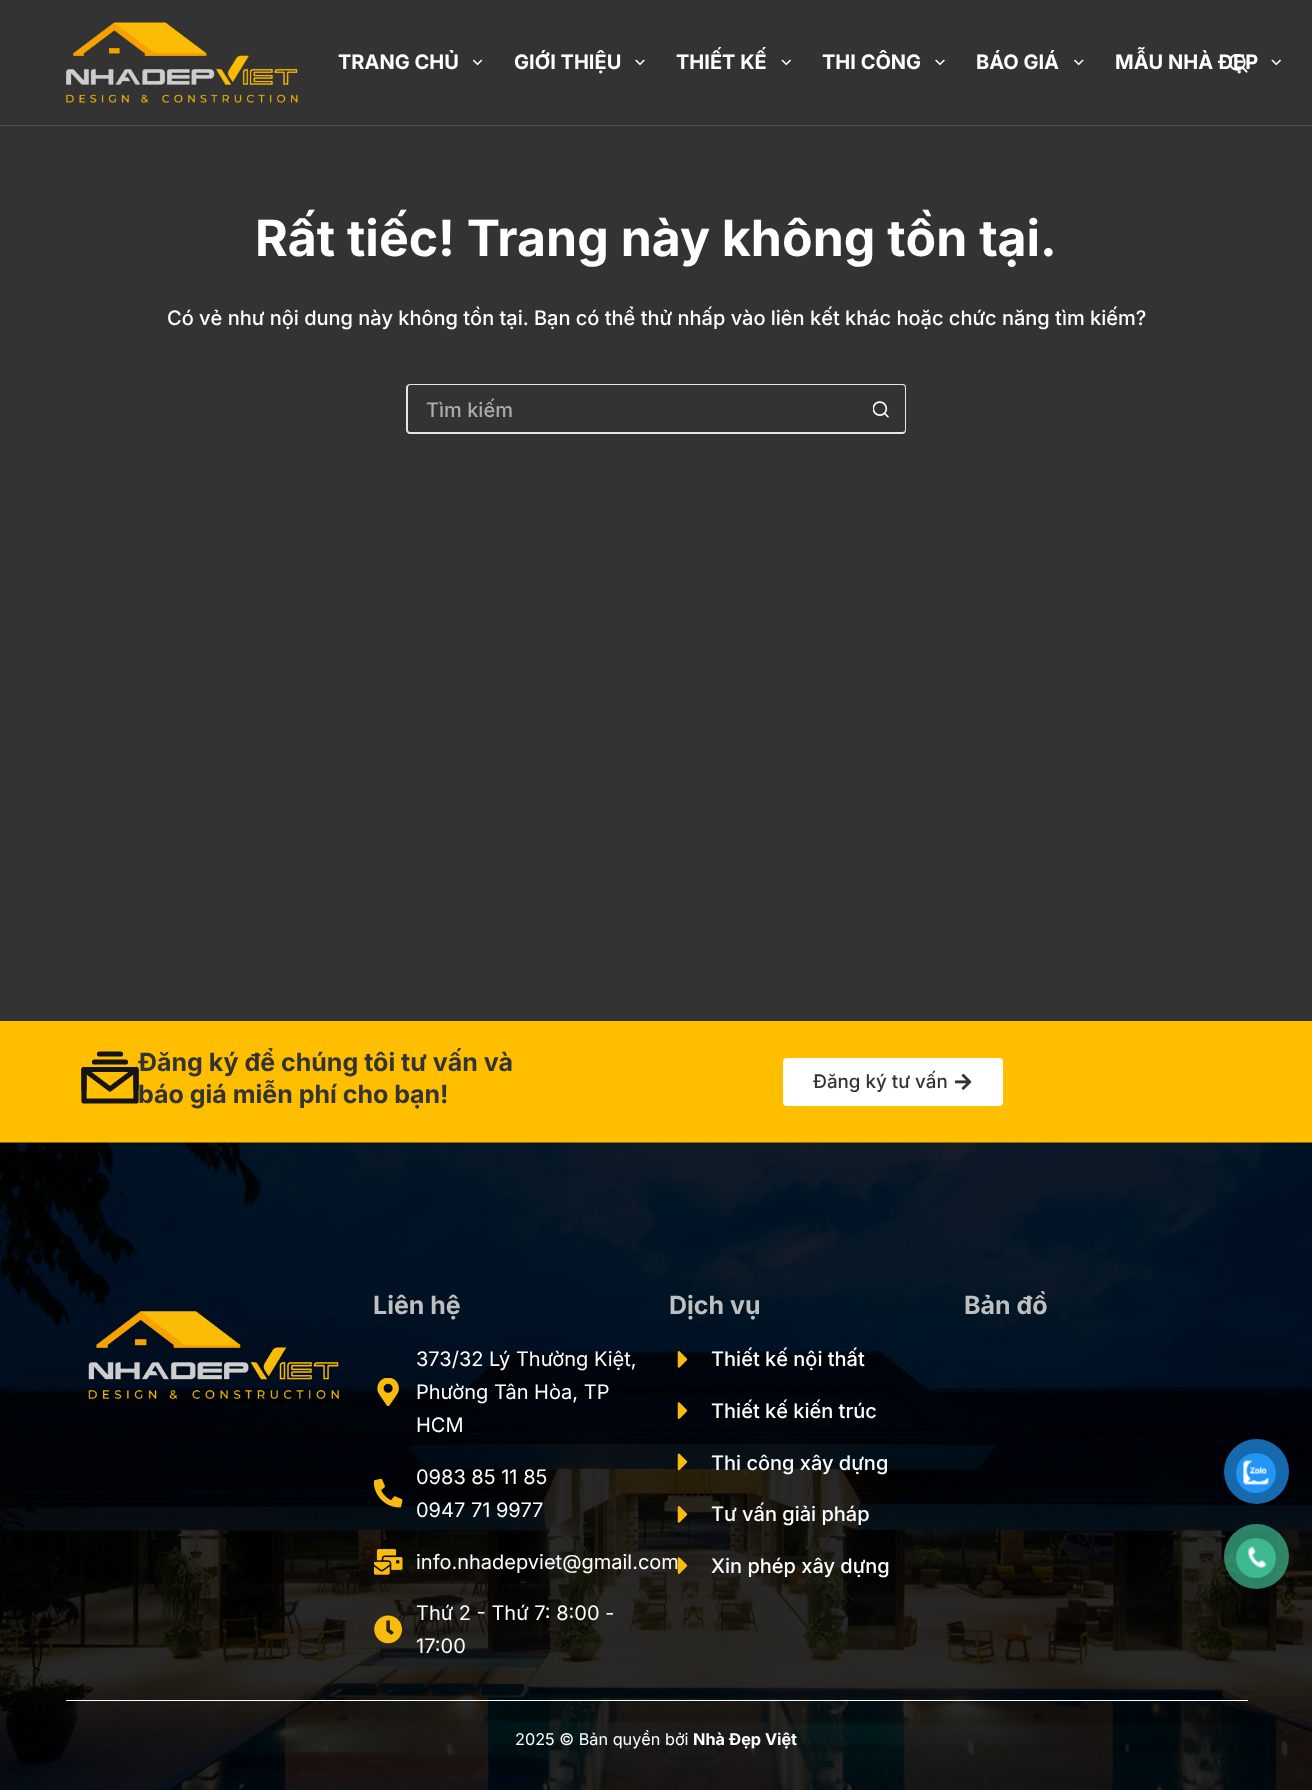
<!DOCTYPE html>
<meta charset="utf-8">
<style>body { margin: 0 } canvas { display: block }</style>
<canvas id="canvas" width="1312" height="1790"></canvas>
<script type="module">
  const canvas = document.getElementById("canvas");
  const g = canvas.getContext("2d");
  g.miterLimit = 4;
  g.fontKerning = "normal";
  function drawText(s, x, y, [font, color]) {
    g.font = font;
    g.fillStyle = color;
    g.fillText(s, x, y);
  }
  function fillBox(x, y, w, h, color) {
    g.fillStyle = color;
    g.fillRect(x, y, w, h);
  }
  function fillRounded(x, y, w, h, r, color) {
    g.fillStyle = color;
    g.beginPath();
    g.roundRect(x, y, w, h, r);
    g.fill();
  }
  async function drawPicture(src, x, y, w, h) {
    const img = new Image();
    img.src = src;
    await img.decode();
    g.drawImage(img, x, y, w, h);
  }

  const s1 = ["bold 20px Inter", "#FFFFFF"];
  const s2 = ["bold 50px Inter", "#FFFFFF"];
  const s3 = ["500 20px Inter", "#FFFFFF"];
  const s4 = ["500 20px Inter", "#ADADAD"];
  const s5 = ["bold 25px Inter", "#333333"];
  const s6 = ["500 18.75px Inter", "#333333"];
  const s7 = ["bold 25px Inter", "#BFBFBF"];
  const s8 = ["20px Inter", "#FFFFFF"];
  const s9 = ["16.25px Inter", "#FFFFFF"];
  const s10 = ["bold 16.25px Inter", "#FFFFFF"];

  fillBox(0, 0, 1312, 1790, "#333333");
  fillBox(0, 125, 1312, 1, "#4E4E4E");
  await drawPicture("pic1.png", 66, 22, 232, 81);
  drawText("TRANG CHỦ", 338, 69, s1);
  await drawPicture("pic2.png", 473, 59, 10, 7);
  drawText("GIỚI THIỆU", 514, 69, s1);
  await drawPicture("pic3.png", 635, 59, 10, 7);
  drawText("THIẾT KẾ", 676, 69, s1);
  await drawPicture("pic4.png", 781, 59, 10, 7);
  drawText("THI CÔNG", 822, 69, s1);
  await drawPicture("pic3.png", 935, 59, 10, 7);
  drawText("BÁO GIÁ", 976, 69, s1);
  await drawPicture("pic5.png", 1074, 59, 10, 7);
  drawText("MẪU NHÀ ĐẸP", 1115, 69, s1);
  await drawPicture("pic4.png", 1271, 59, 10, 7);
  await drawPicture("pic6.png", 1230, 54, 18, 19);
  drawText("Rất tiếc! Trang này không tồn tại.", 255, 256, s2);
  drawText("Có vẻ như nội dung này không tồn tại. Bạn có thể thử nhấp vào liên kết khác hoặc chức năng tìm kiếm?", 167, 325, s3);
  g.fillStyle = "#E1E8ED";
  g.beginPath();
  g.moveTo(410, 384);
  g.lineTo(856, 384);
  g.lineTo(856, 434);
  g.lineTo(410, 434);
  g.bezierCurveTo(408, 434, 406, 432, 406, 430);
  g.lineTo(406, 388);
  g.bezierCurveTo(406, 385, 408, 384, 410, 384);
  g.closePath();
  g.moveTo(410, 385);
  g.lineTo(856, 385);
  g.lineTo(856, 432);
  g.lineTo(410, 432);
  g.bezierCurveTo(409, 432, 408, 431, 408, 430);
  g.lineTo(408, 388);
  g.bezierCurveTo(408, 386, 409, 385, 410, 385);
  g.closePath();
  g.fill("evenodd");
  drawText("Tìm kiếm", 426, 417, s4);
  g.fillStyle = "#E1E8ED";
  g.beginPath();
  g.moveTo(856, 384);
  g.lineTo(902, 384);
  g.bezierCurveTo(905, 384, 906, 385, 906, 388);
  g.lineTo(906, 430);
  g.bezierCurveTo(906, 432, 905, 434, 902, 434);
  g.lineTo(856, 434);
  g.closePath();
  g.moveTo(856, 385);
  g.lineTo(902, 385);
  g.bezierCurveTo(904, 385, 905, 386, 905, 388);
  g.lineTo(905, 430);
  g.bezierCurveTo(905, 431, 904, 432, 902, 432);
  g.lineTo(856, 432);
  g.closePath();
  g.fill("evenodd");
  await drawPicture("pic7.png", 873, 401, 16, 17);
  fillBox(0, 1021, 1312, 122, "#FFBF00");
  g.beginPath();
  g.moveTo(84, 1101);
  g.lineTo(136, 1101);
  g.lineTo(136, 1069.5);
  g.lineTo(84, 1069.5);
  g.closePath();
  g.strokeStyle = "#141414";
  g.lineWidth = 5.2;
  g.lineJoin = "round";
  g.stroke();
  g.beginPath();
  g.moveTo(84, 1069.5);
  g.lineTo(110, 1089);
  g.lineTo(136, 1069.5);
  g.moveTo(84, 1089);
  g.lineTo(84, 1069.5);
  g.lineTo(136, 1069.5);
  g.lineTo(136, 1089);
  g.moveTo(94.5, 1062);
  g.lineTo(125.5, 1062);
  g.moveTo(99.5, 1054);
  g.lineTo(120.5, 1054);
  g.lineCap = "round";
  g.stroke();
  drawText("Đăng ký để chúng tôi tư vấn và", 138, 1071, s5);
  drawText("báo giá miễn phí cho bạn!", 138, 1103, s5);
  fillRounded(783, 1058, 220, 48, 4, "#FFFFFF");
  drawText("Đăng ký tư vấn", 813, 1088, s6);
  await drawPicture("pic8.png", 954, 1073, 18, 17);
  await drawPicture("pic9.png", 0, 1142, 1312, 648);
  await drawPicture("pic10.png", 88, 1311, 251, 88);
  drawText("Liên hệ", 373, 1314, s7);
  await drawPicture("pic11.png", 377, 1378, 22, 28);
  drawText("373/32 Lý Thường Kiệt,", 416, 1366, s8);
  drawText("Phường Tân Hòa, TP", 416, 1399, s8);
  drawText("HCM", 416, 1432, s8);
  await drawPicture("pic12.png", 374, 1479, 29, 29);
  drawText("0983 85 11 85", 416, 1484, s8);
  drawText("0947 71 9977", 416, 1517, s8);
  await drawPicture("pic13.png", 374, 1549, 29, 26);
  drawText("info.nhadepviet@gmail.com", 416, 1569, s8);
  await drawPicture("pic14.png", 374, 1615, 29, 29);
  drawText("Thứ 2 - Thứ 7: 8:00 -", 416, 1620, s8);
  drawText("17:00", 416, 1653, s8);
  drawText("Dịch vụ", 669, 1314, s7);
  await drawPicture("pic15.png", 677, 1351, 11, 17);
  drawText("Thiết kế nội thất", 711, 1366, s3);
  await drawPicture("pic16.png", 677, 1402, 11, 17);
  drawText("Thiết kế kiến trúc", 711, 1418, s3);
  await drawPicture("pic17.png", 677, 1453, 11, 18);
  drawText("Thi công xây dựng", 711, 1470, s3);
  await drawPicture("pic18.png", 677, 1506, 11, 17);
  drawText("Tư vấn giải pháp", 711, 1521, s3);
  await drawPicture("pic19.png", 677, 1557, 11, 17);
  drawText("Xin phép xây dựng", 711, 1573, s3);
  drawText("Bản đồ", 964, 1314, s7);
  fillBox(66, 1700, 1182, 1, "#FAFAFA");
  drawText("2025 © Bản quyền bởi", 515, 1745, s9);
  drawText("Nhà Đẹp Việt", 693, 1745, s10);
  g.fillStyle = "rgba(33, 150, 243, 0.7)";
  g.beginPath();
  g.arc(1256.5, 1471.5, 32.5, 0, Math.PI * 2);
  g.fill();
  g.fillStyle = "#2196F3";
  g.beginPath();
  g.arc(1256, 1473, 20, 0, Math.PI * 2);
  g.fill();
  await drawPicture("pic20.png", 1243, 1460, 26, 25);
  g.fillStyle = "rgba(62, 184, 145, 0.7)";
  g.beginPath();
  g.arc(1256.5, 1556.5, 32.5, 0, Math.PI * 2);
  g.fill();
  g.fillStyle = "#3EB891";
  g.beginPath();
  g.arc(1256, 1558, 20, 0, Math.PI * 2);
  g.fill();
  await drawPicture("pic21.png", 1247, 1546, 20, 23);
</script>
